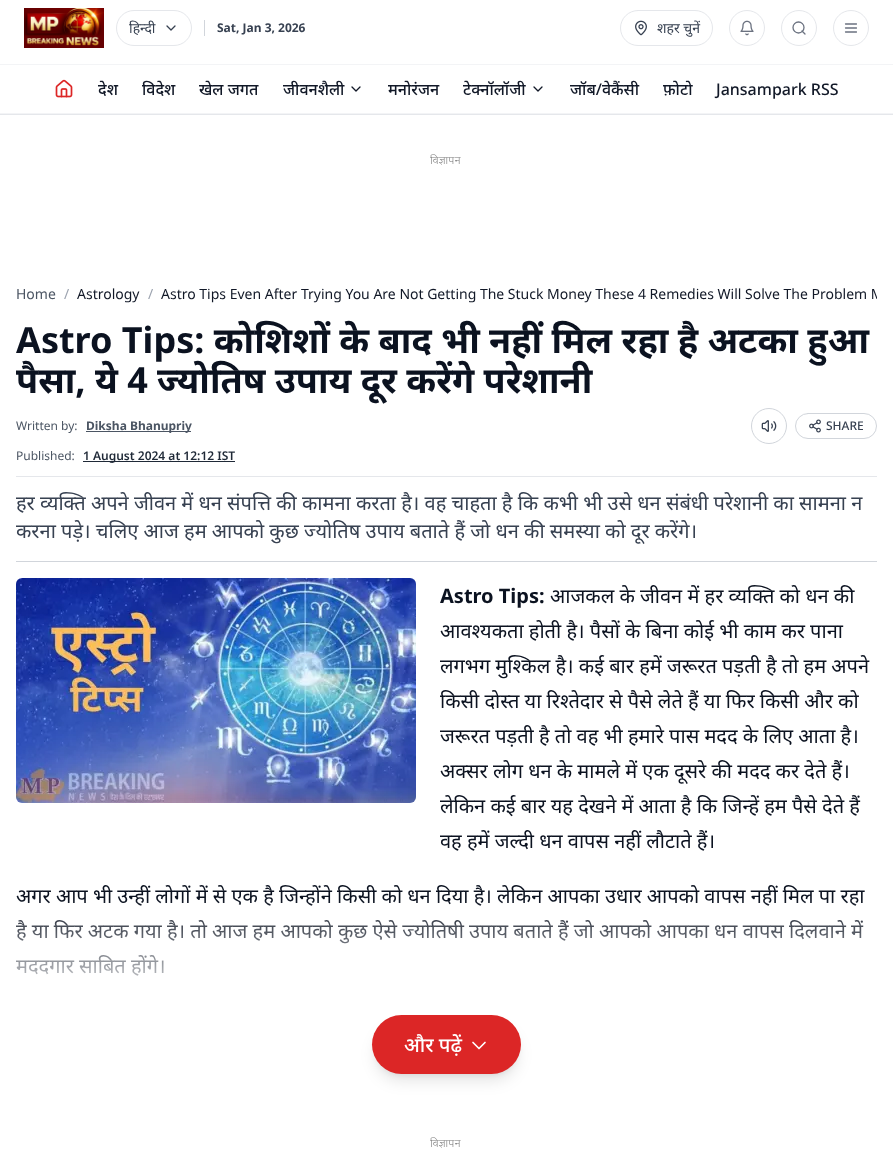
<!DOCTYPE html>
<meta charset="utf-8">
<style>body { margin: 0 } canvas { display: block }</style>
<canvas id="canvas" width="893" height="1176"></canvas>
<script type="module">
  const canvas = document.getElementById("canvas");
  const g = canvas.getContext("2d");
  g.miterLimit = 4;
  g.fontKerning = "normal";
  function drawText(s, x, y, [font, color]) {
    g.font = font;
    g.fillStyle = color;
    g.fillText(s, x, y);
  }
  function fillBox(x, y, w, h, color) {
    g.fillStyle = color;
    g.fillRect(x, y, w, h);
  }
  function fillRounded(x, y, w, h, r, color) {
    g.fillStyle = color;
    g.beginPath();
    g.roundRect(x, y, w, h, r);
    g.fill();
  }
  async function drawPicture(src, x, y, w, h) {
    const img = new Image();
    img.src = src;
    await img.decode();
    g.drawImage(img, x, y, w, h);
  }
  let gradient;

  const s1 = ["14px Noto Sans", "#374151"];
  const s2 = ["bold 12px Noto Sans", "#374151"];
  const s3 = ["500 16px Noto Sans", "#111827"];
  const s4 = ["300 11px Noto Sans", "#777777"];
  const s5 = ["14px Noto Sans", "#4B5563"];
  const s6 = ["14px Noto Sans", "#9CA3AF"];
  const s7 = ["14px Noto Sans", "#111827"];
  const s8 = ["bold 36px Noto Sans", "#0B1220"];
  const s9 = ["12px Noto Sans", "#4B5563"];
  const s10 = ["bold 12px Noto Sans", "#4B5563"];
  const s11 = ["500 12px Noto Sans", "#374151"];
  const s12 = ["600 12px Noto Sans", "#1F2937"];
  const s13 = ["20px Noto Sans", "#374151"];
  const s14 = ["bold 20px Noto Sans", "#0B1220"];
  const s15 = ["20px Noto Sans", "#0B1220"];
  const s16 = ["500 20px Noto Sans", "#FFFFFF"];

  fillBox(0, 0, 893, 1176, "#FFFFFF");
  fillBox(0, 114, 893, 1, "#E5E7EB");
  await drawPicture("pic1.png", 24, 8, 80, 40);
  g.beginPath();
  g.roundRect(116.5, 10.5, 75, 35, 17.5);
  g.strokeStyle = "#E5E7EB";
  g.stroke();
  drawText("हिन्दी", 129, 33, s1);
  g.beginPath();
  g.moveTo(167, 26);
  g.lineTo(171, 30);
  g.lineTo(175, 26);
  g.strokeStyle = "#374151";
  g.lineWidth = 1.3;
  g.lineCap = "round";
  g.lineJoin = "round";
  g.stroke();
  fillBox(204, 20, 1, 16, "#D1D5DB");
  drawText("Sat, Jan 3, 2026", 217, 32, s2);
  g.beginPath();
  g.arc(747, 28, 17.5, 0, Math.PI * 2);
  g.strokeStyle = "#E5E7EB";
  g.lineWidth = 1;
  g.stroke();
  await drawPicture("pic2.png", 740, 20, 14, 16);
  g.beginPath();
  g.arc(799, 28, 17.5, 0, Math.PI * 2);
  g.stroke();
  g.beginPath();
  g.arc(798.5, 27.5, 5.5, 0, Math.PI * 2);
  g.strokeStyle = "#6B7280";
  g.lineWidth = 1.3;
  g.stroke();
  g.beginPath();
  g.arc(851, 28, 17.5, 0, Math.PI * 2);
  g.strokeStyle = "#E5E7EB";
  g.lineWidth = 1;
  g.stroke();
  g.beginPath();
  g.moveTo(805, 34);
  g.lineTo(802, 31);
  g.moveTo(845.5, 24);
  g.lineTo(856.5, 24);
  g.moveTo(845.5, 28);
  g.lineTo(856.5, 28);
  g.moveTo(845.5, 32);
  g.lineTo(856.5, 32);
  g.strokeStyle = "#6B7280";
  g.lineWidth = 1.3;
  g.stroke();
  g.beginPath();
  g.roundRect(620.5, 10.5, 92, 35, 17.5);
  g.strokeStyle = "#E5E7EB";
  g.lineWidth = 1;
  g.lineJoin = "miter";
  g.stroke();
  await drawPicture("pic3.png", 635, 20, 12, 16);
  drawText("शहर चुनें", 657, 33, s1);
  fillBox(0, 64, 893, 1, "#F3F4F6");
  await drawPicture("pic4.png", 55, 79, 18, 19);
  drawText("देश", 98, 95, s3);
  drawText("विदेश", 142, 95, s3);
  drawText("खेल जगत", 199, 95, s3);
  drawText("जीवनशैली", 283, 95, s3);
  g.beginPath();
  g.moveTo(352, 87);
  g.lineTo(356, 91);
  g.lineTo(360, 87);
  g.strokeStyle = "#111827";
  g.lineWidth = 1.3;
  g.lineJoin = "round";
  g.stroke();
  drawText("मनोरंजन", 388, 95, s3);
  drawText("टेक्नॉलॉजी", 463, 95, s3);
  g.beginPath();
  g.moveTo(534, 87);
  g.lineTo(538, 91);
  g.lineTo(542, 87);
  g.stroke();
  drawText("जॉब/वेकैंसी", 570, 95, s3);
  drawText("फ़ोटो", 663, 95, s3);
  drawText("Jansampark RSS", 716, 95, s3);
  fillBox(0, 113, 893, 1, "#F3F4F6");
  g.letterSpacing = "0.25px";
  drawText("विज्ञापन", 430, 164, s4);
  g.letterSpacing = "0px";
  drawText("Home", 16, 299, s5);
  drawText("/", 64, 299, s6);
  drawText("Astrology", 77, 299, s7);
  drawText("/", 148, 299, s6);
  g.save();
  g.beginPath();
  g.rect(16, 284, 861, 20);
  g.clip();
  drawText("Astro Tips Even After Trying You Are Not Getting The Stuck Money These 4 Remedies Will Solve The Problem M", 161, 299, s7);
  g.restore();
  drawText("Astro Tips: कोशिशों के बाद भी नहीं मिल रहा है अटका हुआ", 16, 353, s8);
  drawText("पैसा, ये 4 ज्योतिष उपाय दूर करेंगे परेशानी", 16, 393, s8);
  drawText("Written by:", 16, 430, s9);
  fillBox(86, 431, 105, 1, "#4B5563");
  drawText("Diksha Bhanupriy", 86, 430, s10);
  g.beginPath();
  g.arc(769, 426, 17.5, 0, Math.PI * 2);
  g.strokeStyle = "#D1D5DB";
  g.lineWidth = 1;
  g.stroke();
  await drawPicture("pic5.png", 761, 420, 16, 12);
  g.beginPath();
  g.roundRect(795.5, 413.5, 81, 25, 12.5);
  g.lineJoin = "miter";
  g.stroke();
  await drawPicture("pic6.png", 809, 419, 12, 14);
  drawText("SHARE", 826, 430, s11);
  fillBox(16, 476, 861, 1, "#E5E7EB");
  drawText("Published:", 16, 460, s9);
  fillBox(83, 461, 152, 1, "#1F2937");
  drawText("1 August 2024 at 12:12 IST", 83, 460, s12);
  drawText("हर व्यक्ति अपने जीवन में धन संपत्ति की कामना करता है। वह चाहता है कि कभी भी उसे धन संबंधी परेशानी का सामना न", 16, 510, s13);
  drawText("करना पड़े। चलिए आज हम आपको कुछ ज्योतिष उपाय बताते हैं जो धन की समस्या को दूर करेंगे।", 16, 538, s13);
  fillBox(16, 561, 861, 1, "#D1D5DB");
  await drawPicture("pic7.png", 16, 578, 400, 225);
  drawText("Astro Tips:", 440, 603, s14);
  drawText("आजकल के जीवन में हर व्यक्ति को धन की", 550, 603, s15);
  drawText("आवश्यकता होती है। पैसों के बिना कोई भी काम कर पाना", 440, 638, s15);
  drawText("लगभग मुश्किल है। कई बार हमें जरूरत पड़ती है तो हम अपने", 440, 673, s15);
  drawText("किसी दोस्त या रिश्तेदार से पैसे लेते हैं या फिर किसी और को", 440, 708, s15);
  drawText("जरूरत पड़ती है तो वह भी हमारे पास मदद के लिए आता है।", 440, 743, s15);
  drawText("अक्सर लोग धन के मामले में एक दूसरे की मदद कर देते हैं।", 440, 778, s15);
  drawText("लेकिन कई बार यह देखने में आता है कि जिन्हें हम पैसे देते हैं", 440, 813, s15);
  drawText("वह हमें जल्दी धन वापस नहीं लौटाते हैं।", 440, 848, s15);
  drawText("अगर आप भी उन्हीं लोगों में से एक है जिन्होंने किसी को धन दिया है। लेकिन आपका उधार आपको वापस नहीं मिल पा रहा", 16, 903, s15);
  drawText("है या फिर अटक गया है। तो आज हम आपको कुछ ऐसे ज्योतिषी उपाय बताते हैं जो आपको आपका धन वापस दिलवाने में", 16, 938, s15);
  drawText("मददगार साबित होंगे।", 16, 973, s15);
  gradient = g.createLinearGradient(447, 898, 447, 1048);
  gradient.addColorStop(0, "rgba(255, 255, 255, 0)");
  gradient.addColorStop(0.3, "rgba(255, 255, 255, 0.4)");
  gradient.addColorStop(0.6, "rgba(255, 255, 255, 0.8)");
  gradient.addColorStop(0.85, "rgba(255, 255, 255, 0.95)");
  gradient.addColorStop(1, "#FFFFFF");
  g.fillStyle = gradient;
  g.fillRect(16, 900, 848, 76);
  g.fillStyle = "rgba(0, 0, 0, 0.1)";
  g.filter = "blur(3px)";
  g.beginPath();
  g.roundRect(376, 1023, 141, 51, 25.5);
  g.fill();
  g.filter = "none";
  g.filter = "blur(7.5px)";
  g.beginPath();
  g.roundRect(375, 1028, 143, 53, 26.5);
  g.fill();
  g.filter = "none";
  fillRounded(372, 1015, 149, 59, 29.5, "#DC2626");
  drawText("और पढ़ें", 404, 1052, s16);
  g.beginPath();
  g.moveTo(485, 1042.5);
  g.lineTo(479, 1048.5);
  g.lineTo(473, 1042.5);
  g.strokeStyle = "#FFFFFF";
  g.lineWidth = 1.7;
  g.lineJoin = "round";
  g.stroke();
  g.letterSpacing = "0.25px";
  drawText("विज्ञापन", 430, 1147, s4);
</script>
